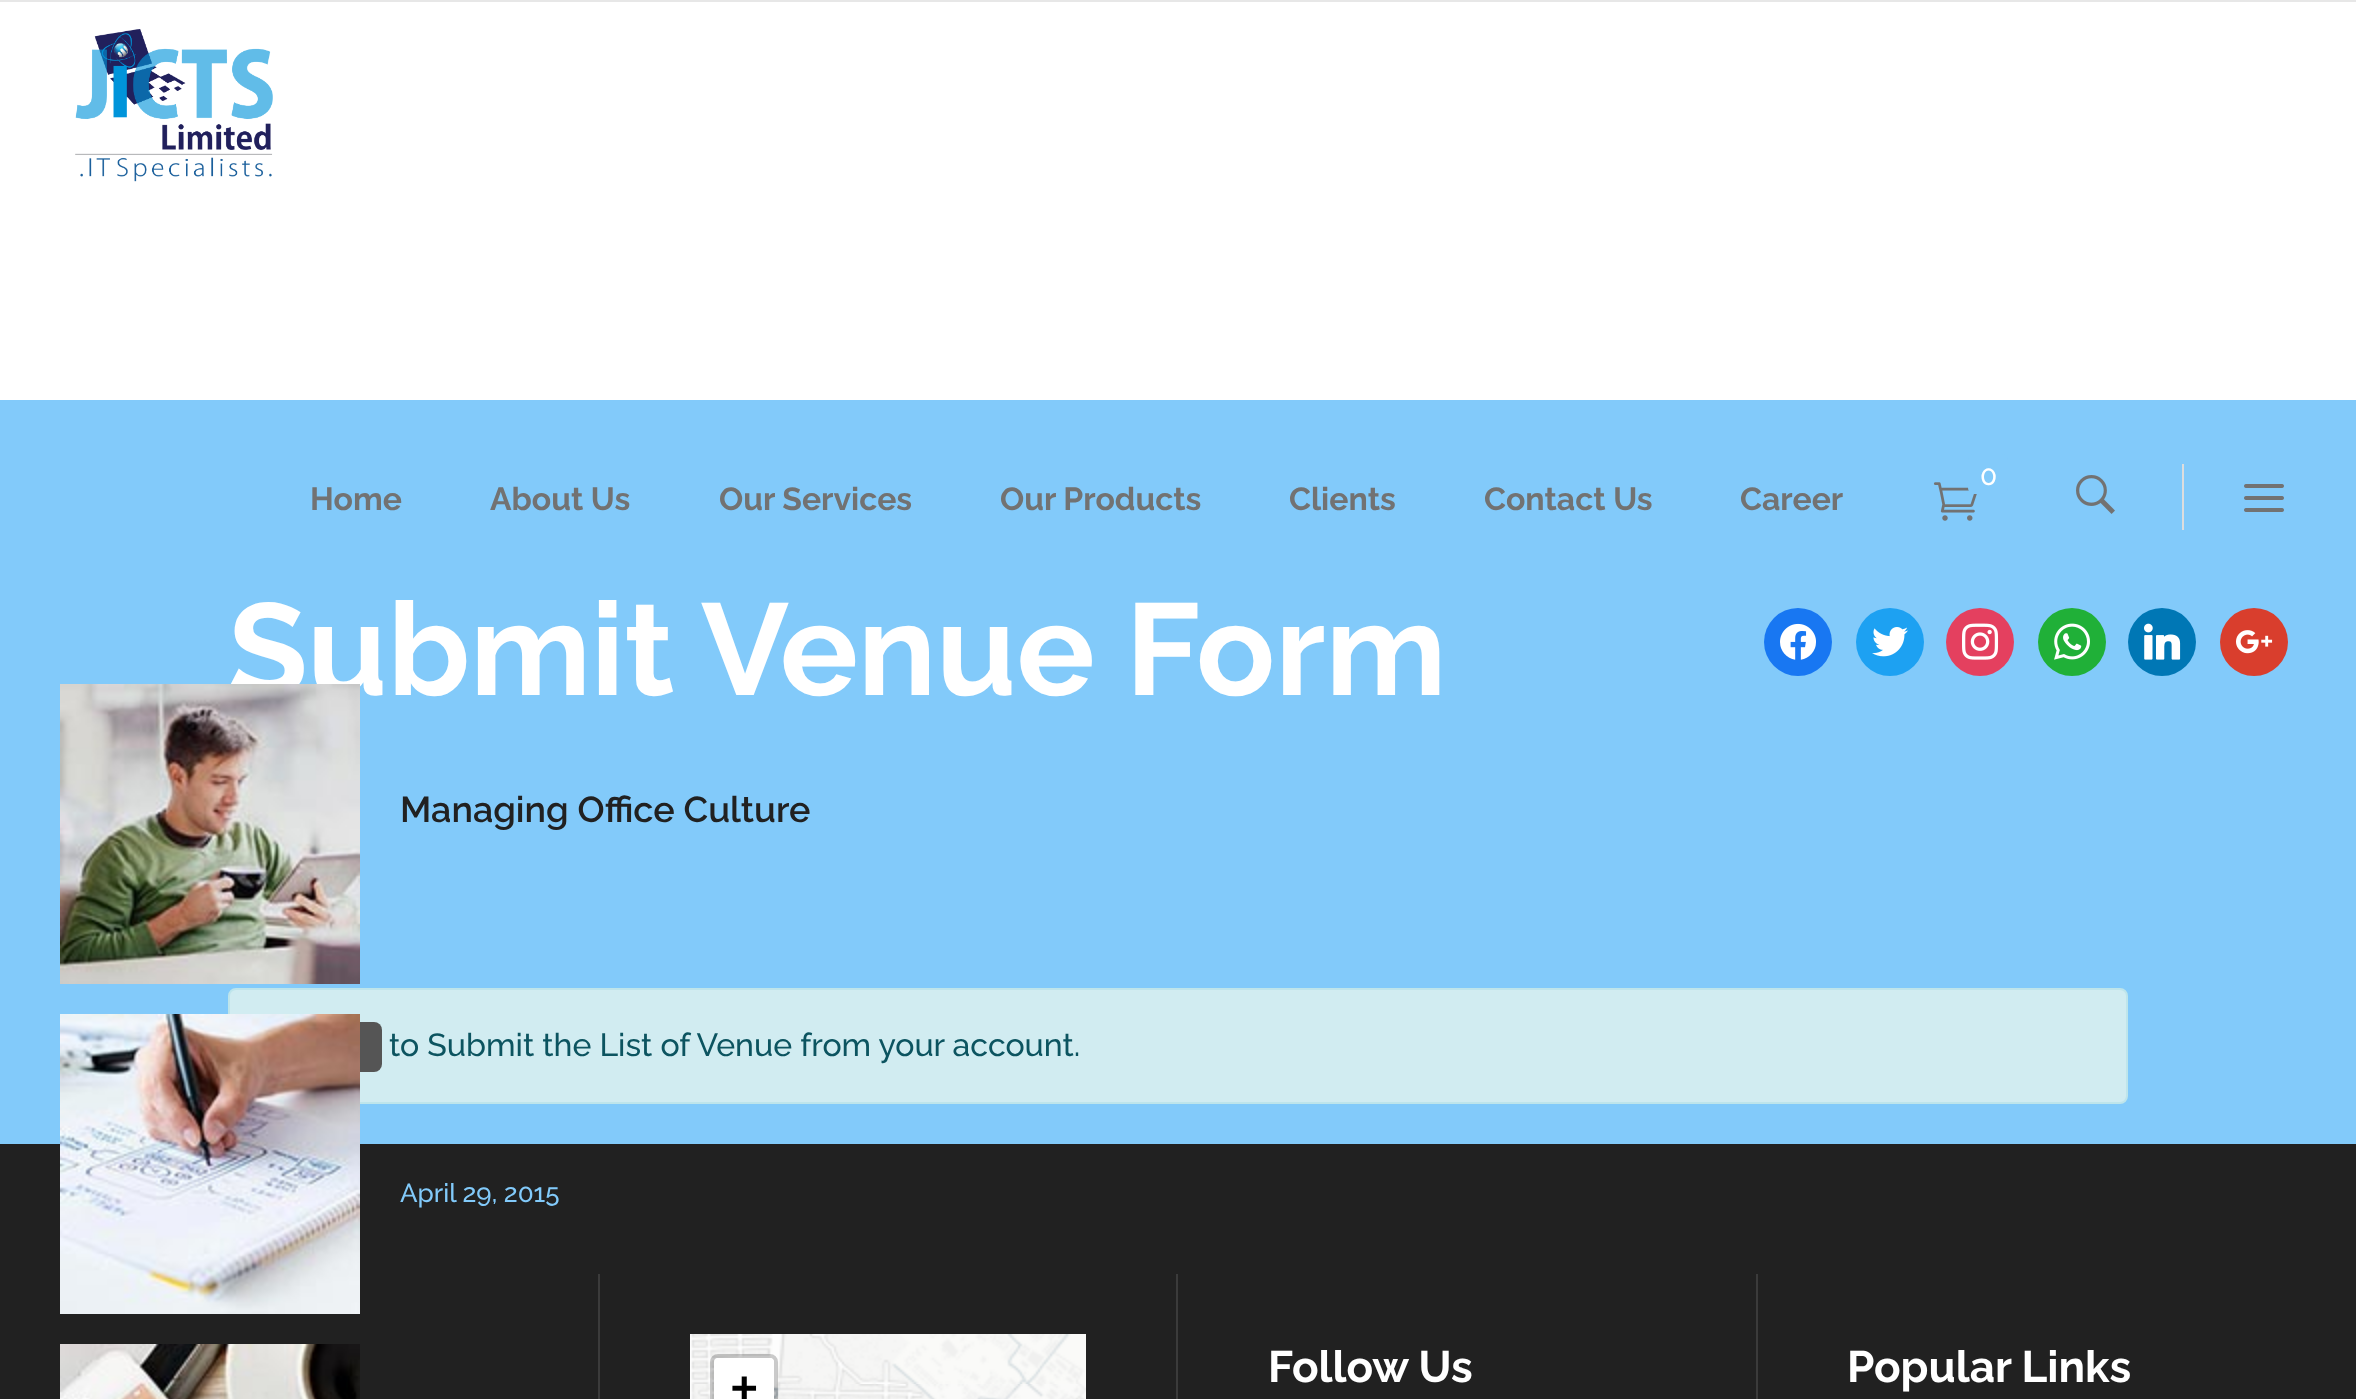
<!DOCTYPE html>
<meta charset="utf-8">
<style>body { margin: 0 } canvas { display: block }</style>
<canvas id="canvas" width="2356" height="1399"></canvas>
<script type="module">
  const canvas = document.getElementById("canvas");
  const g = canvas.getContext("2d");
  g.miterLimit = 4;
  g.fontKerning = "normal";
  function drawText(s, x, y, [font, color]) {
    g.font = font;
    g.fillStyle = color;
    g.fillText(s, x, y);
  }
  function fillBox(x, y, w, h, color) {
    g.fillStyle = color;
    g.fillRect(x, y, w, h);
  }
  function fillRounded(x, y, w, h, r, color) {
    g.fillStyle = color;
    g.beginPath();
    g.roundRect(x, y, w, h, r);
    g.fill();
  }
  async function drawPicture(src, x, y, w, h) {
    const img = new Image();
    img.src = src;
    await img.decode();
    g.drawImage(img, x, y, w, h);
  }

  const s1 = ["bold 32px Raleway", "#727272"];
  const s2 = ["500 28px Raleway", "#FFFFFF"];
  const s3 = ["bold 130px Raleway", "#FFFFFF"];
  const s4 = ["600 36px Raleway", "#212121"];
  const s5 = ["500 26px Raleway", "#82CAFA"];
  const s6 = ["500 32px Raleway", "#0C5460"];
  const s7 = ["bold 44px DejaVu Sans Mono", "#000000"];
  const s8 = ["bold 44px Raleway", "#FFFFFF"];

  fillBox(0, 0, 2356, 1399, "#FFFFFF");
  fillBox(0, 0, 2356, 2, "#E7E7E7");
  await drawPicture("pic1.png", 75, 29, 198, 153);
  fillBox(0, 400, 2356, 744, "#82CAFA");
  drawText("Home", 310, 510, s1);
  drawText("About Us", 490, 510, s1);
  drawText("Our Services", 719, 510, s1);
  drawText("Our Products", 1000, 510, s1);
  drawText("Clients", 1289, 510, s1);
  drawText("Contact Us", 1484, 510, s1);
  drawText("Career", 1740, 510, s1);
  await drawPicture("pic2.png", 1933, 482, 44, 39);
  fillRounded(1968, 454, 40, 40, 6, "#82CAFA");
  drawText("0", 1980, 485, s2);
  await drawPicture("pic3.png", 2076, 475, 39, 39);
  fillBox(2182, 464, 2, 66, "#DDDDDD");
  await drawPicture("pic4.png", 2244, 484, 40, 28);
  g.fillStyle = "#1877F2";
  g.beginPath();
  g.arc(1798, 642, 34, 0, Math.PI * 2);
  g.fill();
  await drawPicture("pic5.png", 1780, 623, 36, 37);
  g.fillStyle = "#1DA1F2";
  g.beginPath();
  g.arc(1890, 642, 34, 0, Math.PI * 2);
  g.fill();
  await drawPicture("pic6.png", 1872, 627, 36, 30);
  g.fillStyle = "#E4405F";
  g.beginPath();
  g.arc(1980, 642, 34, 0, Math.PI * 2);
  g.fill();
  await drawPicture("pic7.png", 1962, 623, 37, 37);
  g.fillStyle = "#20B038";
  g.beginPath();
  g.arc(2072, 642, 34, 0, Math.PI * 2);
  g.fill();
  await drawPicture("pic8.png", 2054, 623, 36, 37);
  g.fillStyle = "#0077B5";
  g.beginPath();
  g.arc(2162, 642, 34, 0, Math.PI * 2);
  g.fill();
  await drawPicture("pic9.png", 2144, 623, 37, 37);
  g.fillStyle = "#D93E2D";
  g.beginPath();
  g.arc(2254, 642, 34, 0, Math.PI * 2);
  g.fill();
  await drawPicture("pic10.png", 2236, 630, 37, 24);
  drawText("Submit Venue Form", 228, 695, s3);
  await drawPicture("pic11.png", 60, 684, 300, 300);
  drawText("Managing Office Culture", 400, 822, s4);
  g.fillStyle = "#D1ECF1";
  g.beginPath();
  g.roundRect(229, 989, 1898, 114, 7);
  g.fill();
  g.strokeStyle = "#BEE5EB";
  g.lineWidth = 2;
  g.stroke();
  fillRounded(260, 1022, 122, 50, 8, "#555555");
  fillBox(0, 1144, 2356, 255, "#212121");
  await drawPicture("pic12.png", 60, 1014, 300, 300);
  drawText("April 29, 2015", 400, 1202, s5);
  await drawPicture("pic13.png", 60, 1344, 300, 55);
  drawText("to Submit the List of Venue from your account.", 389, 1056, s6);
  fillBox(598, 1274, 2, 125, "#3B3B3B");
  fillBox(1176, 1274, 2, 125, "#3B3B3B");
  await drawPicture("pic14.png", 690, 1334, 396, 50);
  await drawPicture("pic15.png", 690, 1384, 396, 15);
  g.beginPath();
  g.roundRect(712, 1356, 64, 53, 6);
  g.strokeStyle = "rgba(0, 0, 0, 0.2)";
  g.lineWidth = 4;
  g.stroke();
  g.fillStyle = "#FFFFFF";
  g.beginPath();
  g.moveTo(718, 1358);
  g.lineTo(770, 1358);
  g.bezierCurveTo(772, 1358, 774, 1360, 774, 1362);
  g.lineTo(774, 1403);
  g.lineTo(714, 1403);
  g.lineTo(714, 1362);
  g.bezierCurveTo(714, 1360, 716, 1358, 718, 1358);
  g.closePath();
  g.fill();
  drawText("+", 731, 1402, s7);
  fillBox(1756, 1274, 2, 125, "#3B3B3B");
  drawText("Follow Us", 1268, 1382, s8);
  drawText("Popular Links", 1847, 1382, s8);
</script>
